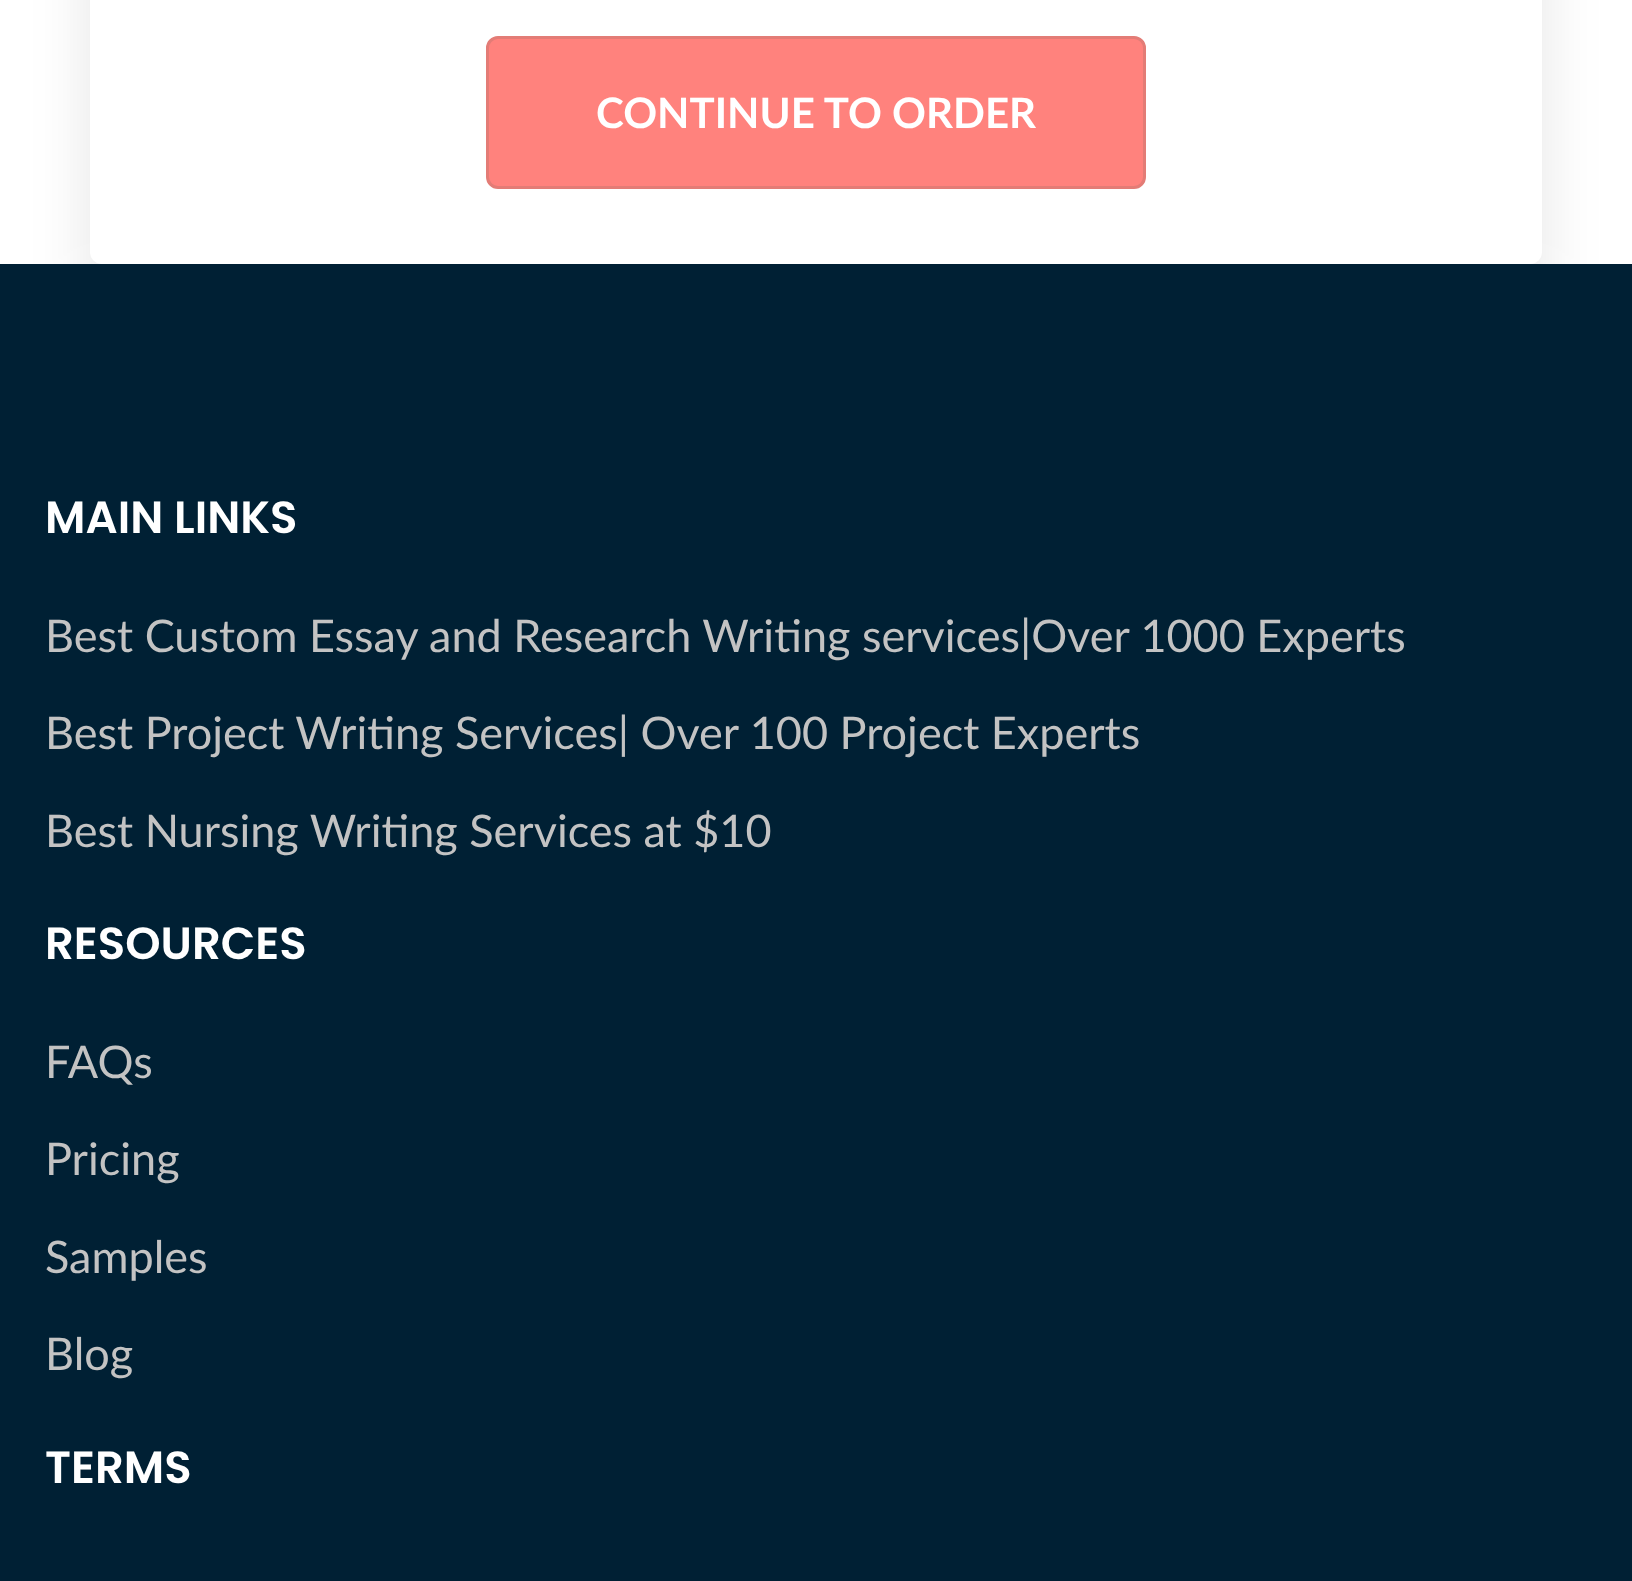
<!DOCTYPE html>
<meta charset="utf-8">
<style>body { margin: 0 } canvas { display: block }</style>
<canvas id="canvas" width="1632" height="1581"></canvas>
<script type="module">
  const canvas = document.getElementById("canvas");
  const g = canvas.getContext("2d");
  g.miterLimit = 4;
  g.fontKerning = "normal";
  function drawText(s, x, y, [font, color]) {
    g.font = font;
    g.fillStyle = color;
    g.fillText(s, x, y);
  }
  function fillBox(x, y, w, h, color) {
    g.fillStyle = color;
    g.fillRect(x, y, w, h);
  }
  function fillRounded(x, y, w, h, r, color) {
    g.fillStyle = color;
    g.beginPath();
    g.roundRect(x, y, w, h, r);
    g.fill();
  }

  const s1 = ["bold 42px Lato", "#FFFFFF"];
  const s2 = ["600 45px Poppins", "#FFFFFF"];
  const s3 = ["45px Lato", "#C3C3C3"];

  fillBox(0, 0, 1632, 1581, "#FFFFFF");
  g.fillStyle = "rgba(0, 0, 0, 0.1)";
  g.filter = "blur(30px)";
  g.beginPath();
  g.roundRect(90, -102, 1452, 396, 12);
  g.fill();
  g.filter = "none";
  fillRounded(90, -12, 1452, 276, 12, "#FFFFFF");
  g.fillStyle = "#FF827D";
  g.beginPath();
  g.roundRect(487.5, 37.5, 657, 150, 10.5);
  g.fill();
  g.strokeStyle = "#E37C76";
  g.lineWidth = 3;
  g.stroke();
  drawText("CONTINUE TO ORDER", 596, 128, s1);
  fillBox(0, 264, 1632, 1317, "#002034");
  drawText("MAIN LINKS", 45, 533, s2);
  drawText("Best Custom Essay and Research Writing services|Over 1000 Experts", 45, 652, s3);
  drawText("Best Project Writing Services| Over 100 Project Experts", 45, 749, s3);
  drawText("Best Nursing Writing Services at $10", 45, 847, s3);
  drawText("RESOURCES", 45, 959, s2);
  drawText("FAQs", 45, 1078, s3);
  drawText("Pricing", 45, 1175, s3);
  drawText("Samples", 45, 1273, s3);
  drawText("Blog", 45, 1370, s3);
  drawText("TERMS", 45, 1483, s2);
</script>
